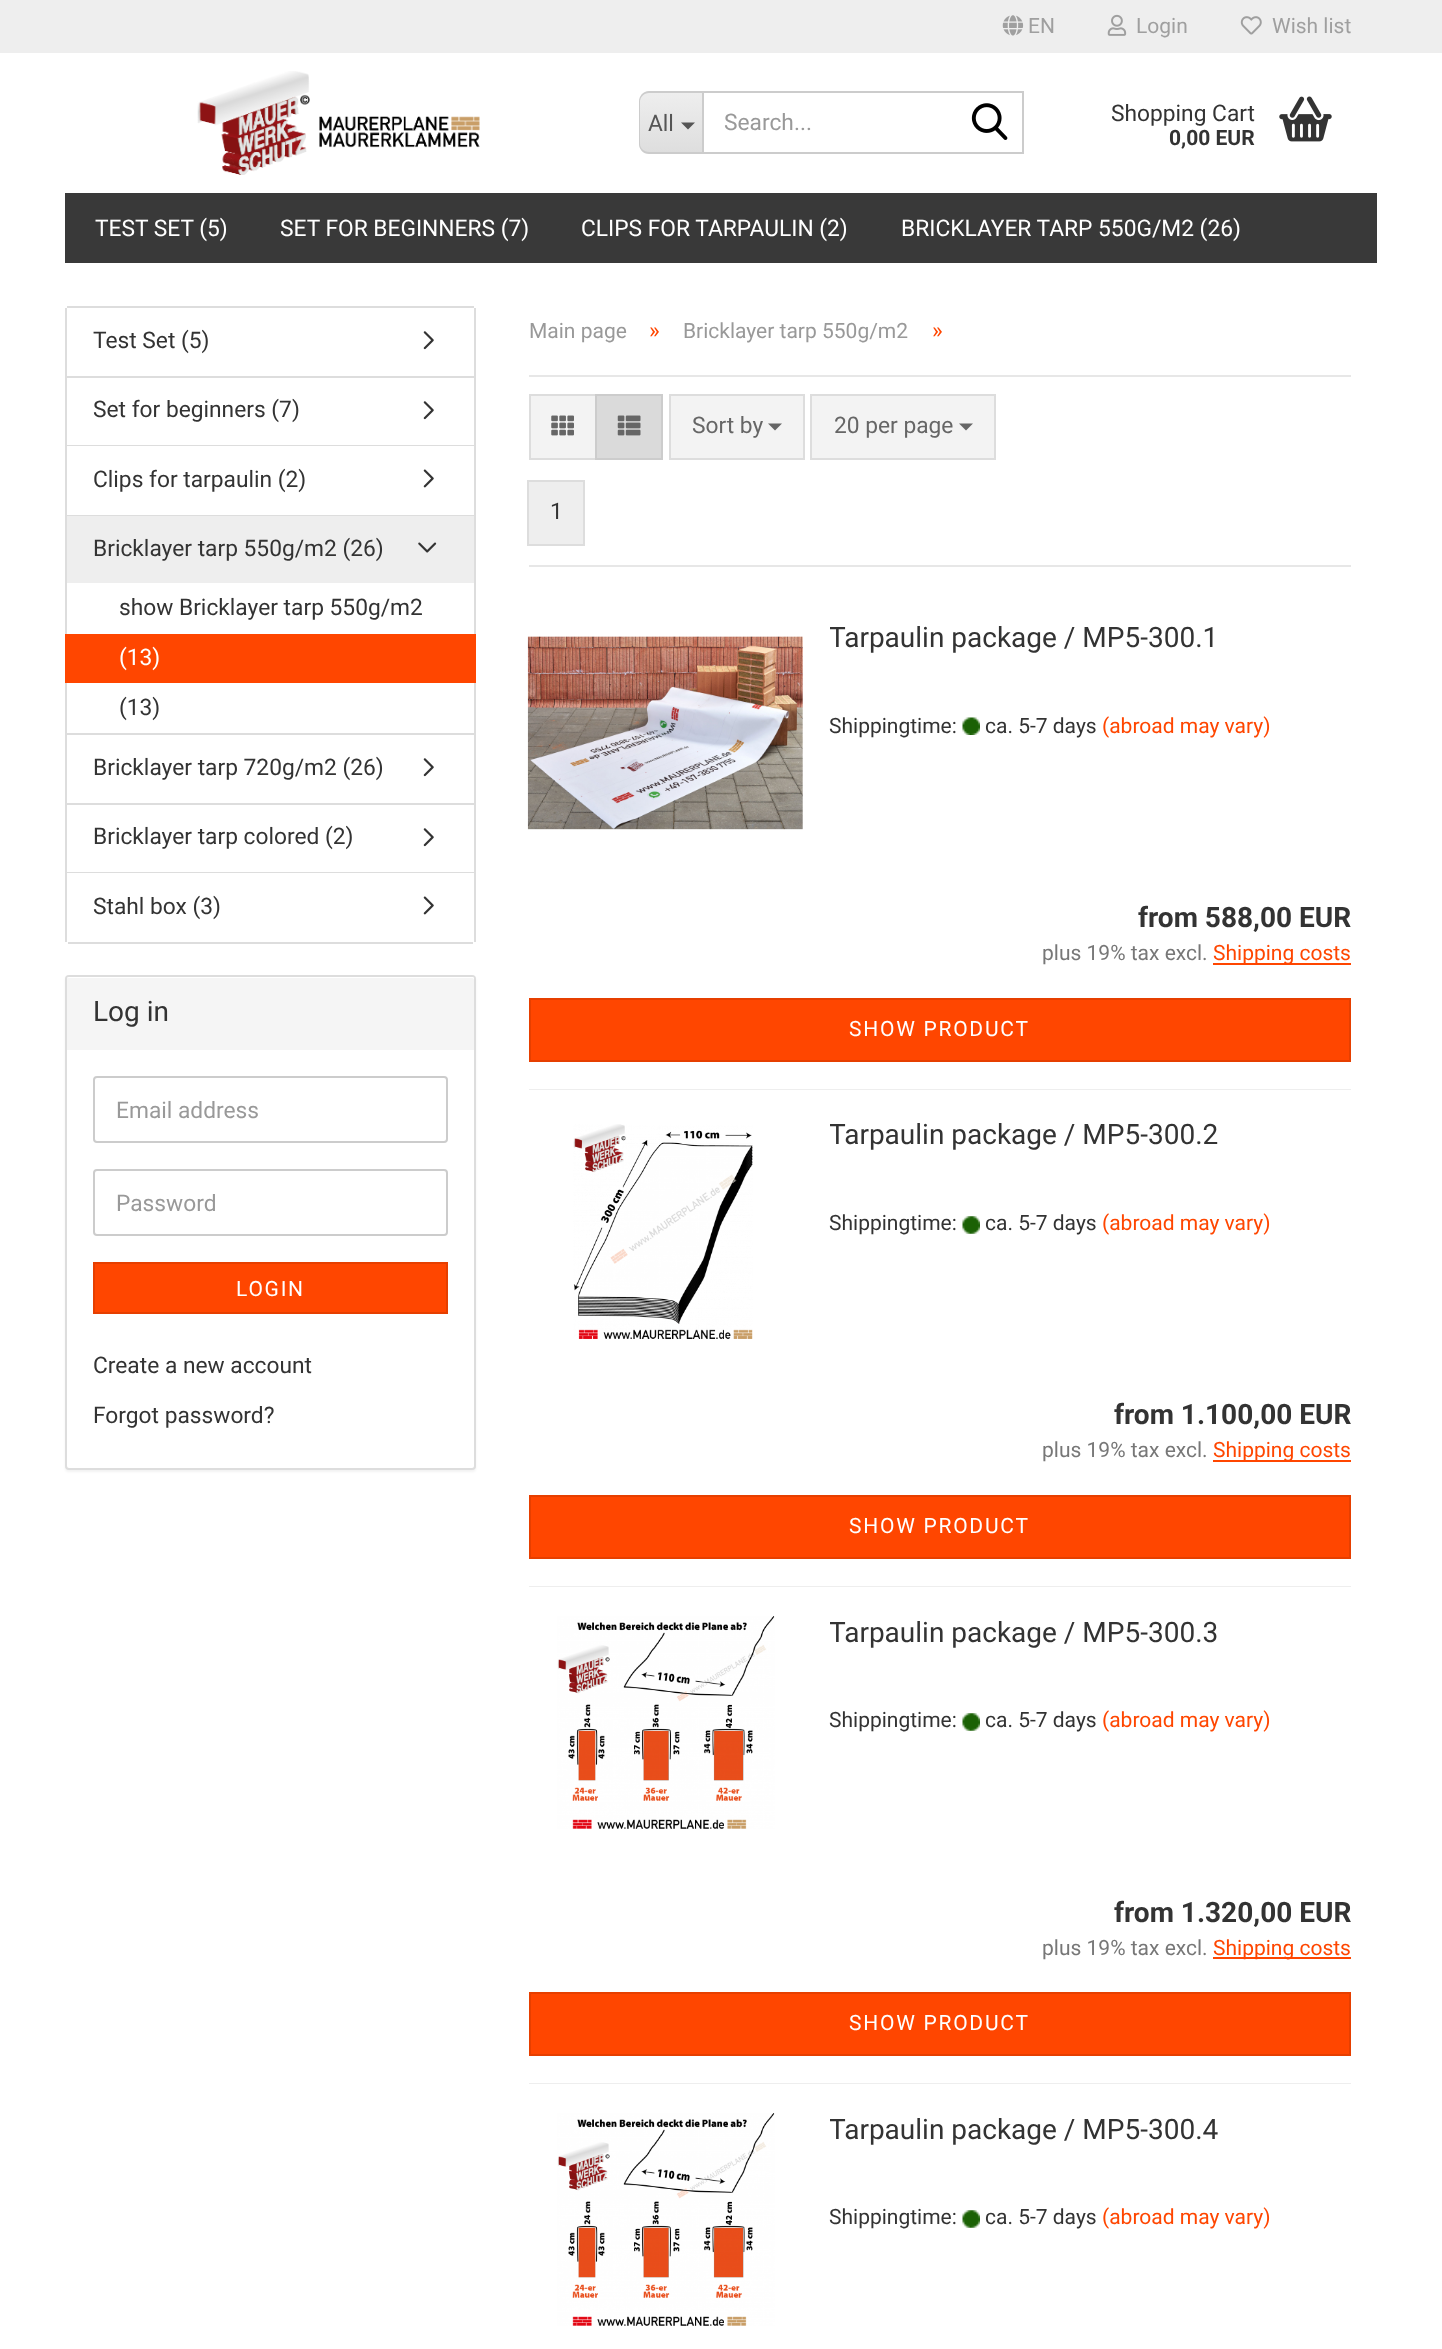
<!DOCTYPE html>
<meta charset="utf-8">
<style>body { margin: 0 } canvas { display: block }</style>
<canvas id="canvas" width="1442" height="2349"></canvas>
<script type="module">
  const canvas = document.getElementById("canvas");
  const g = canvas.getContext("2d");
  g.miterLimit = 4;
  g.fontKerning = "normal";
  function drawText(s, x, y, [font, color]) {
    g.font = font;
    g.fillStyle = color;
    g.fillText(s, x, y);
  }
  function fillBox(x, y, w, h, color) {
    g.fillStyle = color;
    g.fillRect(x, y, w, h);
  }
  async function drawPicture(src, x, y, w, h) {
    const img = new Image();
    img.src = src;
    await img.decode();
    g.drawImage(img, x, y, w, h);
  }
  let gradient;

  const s1 = ["21px Roboto", "#9F9F9F"];
  const s2 = ["22.75px Roboto", "#555555"];
  const s3 = ["22.75px Roboto", "#999999"];
  const s4 = ["22.75px Roboto", "#333333"];
  const s5 = ["bold 21px Roboto", "#333333"];
  const s6 = ["22.75px Roboto", "#FFFFFF"];
  const s7 = ["28px Roboto", "#333333"];
  const s8 = ["21px Roboto", "#FFFFFF"];
  const s9 = ["21px Roboto", "#999999"];
  const s10 = ["22.75px Roboto", "#FF4600"];
  const s11 = ["22.75px Roboto", "#666666"];
  const s12 = ["21px Roboto", "#333333"];
  const s13 = ["21px Roboto", "#FF4600"];
  const s14 = ["bold 28px Roboto", "#333333"];
  const s15 = ["21px Roboto", "#777777"];

  fillBox(0, 0, 1442, 2349, "#FFFFFF");
  fillBox(0, 0, 1442, 53, "#EEEEEE");
  await drawPicture("pic1.png", 1002, 15, 22, 21);
  drawText("EN", 1028, 33, s1);
  await drawPicture("pic2.png", 1107, 14, 20, 22);
  drawText("Login", 1136, 33, s1);
  await drawPicture("pic3.png", 1240, 16, 22, 19);
  drawText("Wish list", 1272, 33, s1);
  await drawPicture("pic4.png", 197, 71, 283, 104);
  g.save();
  g.beginPath();
  g.roundRect(639, 91, 63, 63, [11, 0, 0, 11]);
  g.clip();
  gradient = g.createLinearGradient(671, 93, 671, 152);
  gradient.addColorStop(0, "#EEEEEE");
  gradient.addColorStop(1, "#DEDEDE");
  g.fillStyle = gradient;
  g.fillRect(639, 93, 63, 59);
  g.restore();
  g.fillStyle = "#CCCCCC";
  g.beginPath();
  g.moveTo(649, 91);
  g.lineTo(702, 91);
  g.lineTo(702, 154);
  g.lineTo(649, 154);
  g.bezierCurveTo(643, 154, 639, 149, 639, 144);
  g.lineTo(639, 102);
  g.bezierCurveTo(639, 96, 643, 91, 649, 91);
  g.closePath();
  g.moveTo(649, 93);
  g.lineTo(702, 93);
  g.lineTo(702, 152);
  g.lineTo(649, 152);
  g.bezierCurveTo(644, 152, 640, 148, 640, 144);
  g.lineTo(640, 102);
  g.bezierCurveTo(640, 97, 644, 93, 649, 93);
  g.closePath();
  g.fill("evenodd");
  drawText("All", 648, 131, s2);
  g.beginPath();
  g.moveTo(681, 122.5);
  g.lineTo(695, 122.5);
  g.lineTo(688, 129.5);
  g.closePath();
  g.fill();
  g.strokeStyle = "#CCCCCC";
  g.lineWidth = 2;
  g.strokeRect(703, 92, 320, 61);
  drawText("Search...", 724, 130, s3);
  await drawPicture("pic5.png", 971, 103, 37, 37);
  drawText("Shopping Cart", 1111, 121, s4);
  drawText("0,00 EUR", 1169, 145, s5);
  await drawPicture("pic6.png", 1279, 96, 53, 46);
  fillBox(65, 193, 1312, 70, "#393939");
  drawText("TEST SET (5)", 95, 236, s6);
  drawText("SET FOR BEGINNERS (7)", 280, 236, s6);
  drawText("CLIPS FOR TARPAULIN (2)", 581, 236, s6);
  drawText("BRICKLAYER TARP 550G/M2 (26)", 901, 236, s6);
  fillBox(67, 306, 407, 2, "#DDDDDD");
  fillBox(474, 308, 2, 634, "#DDDDDD");
  fillBox(65, 308, 2, 634, "#DDDDDD");
  fillBox(67, 376, 407, 2, "#DDDDDD");
  drawText("Test Set (5)", 93, 348, s4);
  await drawPicture("pic7.png", 423, 331, 11, 19);
  fillBox(67, 445, 407, 1, "#DDDDDD");
  drawText("Set for beginners (7)", 93, 417, s4);
  await drawPicture("pic7.png", 423, 401, 11, 19);
  fillBox(67, 515, 407, 1, "#DDDDDD");
  drawText("Clips for tarpaulin (2)", 93, 487, s4);
  await drawPicture("pic8.png", 423, 469, 11, 19);
  fillBox(67, 733, 407, 2, "#DDDDDD");
  fillBox(67, 516, 407, 67, "#EEEEEE");
  drawText("Bricklayer tarp 550g/m2 (26)", 93, 556, s4);
  await drawPicture("pic9.png", 418, 542, 19, 11);
  drawText("show Bricklayer tarp 550g/m2", 119, 615, s4);
  fillBox(65, 634, 411, 49, "#FF4600");
  drawText("(13)", 119, 665, s6);
  drawText("(13)", 119, 715, s4);
  fillBox(67, 803, 407, 2, "#DDDDDD");
  drawText("Bricklayer tarp 720g/m2 (26)", 93, 775, s4);
  await drawPicture("pic7.png", 423, 758, 11, 19);
  fillBox(67, 872, 407, 1, "#DDDDDD");
  drawText("Bricklayer tarp colored (2)", 93, 844, s4);
  await drawPicture("pic7.png", 423, 828, 11, 19);
  fillBox(68, 942, 405, 2, "#DDDDDD");
  drawText("Stahl box (3)", 93, 914, s4);
  await drawPicture("pic8.png", 423, 896, 11, 19);
  g.fillStyle = "rgba(0, 0, 0, 0.05)";
  g.filter = "blur(1px)";
  g.beginPath();
  g.roundRect(65, 977, 411, 495, 4);
  g.fill();
  g.filter = "none";
  g.fillStyle = "#FFFFFF";
  g.beginPath();
  g.roundRect(66, 976, 409, 493, 3);
  g.fill();
  g.strokeStyle = "#DDDDDD";
  g.stroke();
  g.fillStyle = "#F5F5F5";
  g.beginPath();
  g.roundRect(67, 977, 407, 73, [2, 2, 0, 0]);
  g.fill();
  g.fillStyle = "#FFFFFF";
  g.beginPath();
  g.moveTo(68, 978);
  g.lineTo(472, 978);
  g.bezierCurveTo(473, 978, 474, 979, 474, 980);
  g.bezierCurveTo(474, 979, 474, 978, 473, 977);
  g.lineTo(69, 977);
  g.lineTo(67, 978);
  g.closePath();
  g.fill();
  drawText("Log in", 93, 1021, s7);
  g.beginPath();
  g.roundRect(94, 1077, 353, 65, 3);
  g.strokeStyle = "#CCCCCC";
  g.stroke();
  drawText("Email address", 116, 1118, s3);
  g.beginPath();
  g.roundRect(94, 1170, 353, 65, 3);
  g.stroke();
  drawText("Password", 116, 1211, s3);
  g.fillStyle = "#FF4600";
  g.beginPath();
  g.rect(94, 1263, 353, 50);
  g.fill();
  g.strokeStyle = "#E63F00";
  g.stroke();
  g.letterSpacing = "1.75px";
  drawText("LOGIN", 236, 1296, s8);
  g.letterSpacing = "0px";
  drawText("Create a new account", 93, 1373, s4);
  drawText("Forgot password?", 93, 1423, s4);
  drawText("Main page", 529, 338, s9);
  drawText("»", 649, 338, s10);
  drawText("Bricklayer tarp 550g/m2", 683, 338, s9);
  drawText("»", 932, 338, s10);
  fillBox(529, 375, 822, 2, "#E7E7E7");
  fillBox(529, 565, 822, 2, "#E7E7E7");
  g.fillStyle = "#F3F3F3";
  g.beginPath();
  g.rect(530, 395, 66, 64);
  g.fill();
  g.strokeStyle = "#DDDDDD";
  g.stroke();
  await drawPicture("pic10.png", 551, 415, 23, 21);
  g.fillStyle = "#DADADA";
  g.beginPath();
  g.rect(596, 395, 66, 64);
  g.fill();
  g.strokeStyle = "#CCCCCC";
  g.stroke();
  await drawPicture("pic11.png", 617, 415, 24, 21);
  g.fillStyle = "#F3F3F3";
  g.beginPath();
  g.rect(670, 395, 134, 64);
  g.fill();
  g.strokeStyle = "#DDDDDD";
  g.stroke();
  drawText("Sort by", 692, 433, s11);
  g.beginPath();
  g.moveTo(768, 423.5);
  g.lineTo(782, 423.5);
  g.lineTo(775, 430.5);
  g.closePath();
  g.fill();
  g.fillStyle = "#F3F3F3";
  g.beginPath();
  g.rect(811, 395, 184, 64);
  g.fill();
  g.stroke();
  drawText("20 per page", 834, 433, s11);
  g.beginPath();
  g.moveTo(959, 423.5);
  g.lineTo(973, 423.5);
  g.lineTo(966, 430.5);
  g.closePath();
  g.fill();
  g.fillStyle = "#EEEEEE";
  g.beginPath();
  g.rect(528, 481, 56, 64);
  g.fill();
  g.stroke();
  drawText("1", 550, 519, s4);
  fillBox(529, 1089, 822, 1, "#EEEEEE");
  await drawPicture("pic12.png", 527, 636, 276, 194);
  g.save();
  g.beginPath();
  g.rect(830, 620, 495, 40);
  g.clip();
  drawText("Tarpaulin package / MP5-300.1", 829, 647, s7);
  g.restore();
  drawText("Shippingtime:", 829, 733, s12);
  await drawPicture("pic13.png", 962, 717, 18, 18);
  drawText("ca. 5-7 days", 985, 733, s12);
  drawText("(abroad may vary)", 1102, 733, s13);
  drawText("from 588,00 EUR", 1138, 927, s14);
  drawText("plus 19% tax excl.", 1042, 960, s15);
  fillBox(1213, 963, 138, 2, "#FF4600");
  drawText("Shipping costs", 1213, 960, s13);
  g.beginPath();
  g.rect(530, 999, 820, 62);
  g.fill();
  g.strokeStyle = "#E63F00";
  g.stroke();
  g.letterSpacing = "1.75px";
  drawText("SHOW PRODUCT", 849, 1036, s8);
  fillBox(529, 1586, 822, 1, "#EEEEEE");
  await drawPicture("pic14.png", 573, 1124, 180, 215);
  g.save();
  g.beginPath();
  g.rect(830, 1117, 495, 40);
  g.clip();
  g.letterSpacing = "0px";
  drawText("Tarpaulin package / MP5-300.2", 829, 1144, s7);
  g.restore();
  g.letterSpacing = "0px";
  drawText("Shippingtime:", 829, 1230, s12);
  await drawPicture("pic15.png", 962, 1216, 18, 18);
  drawText("ca. 5-7 days", 985, 1230, s12);
  drawText("(abroad may vary)", 1102, 1230, s13);
  drawText("from 1.100,00 EUR", 1114, 1424, s14);
  drawText("plus 19% tax excl.", 1042, 1457, s15);
  fillBox(1213, 1460, 138, 2, "#FF4600");
  drawText("Shipping costs", 1213, 1457, s13);
  g.beginPath();
  g.rect(530, 1496, 820, 62);
  g.fill();
  g.stroke();
  g.letterSpacing = "1.75px";
  drawText("SHOW PRODUCT", 849, 1533, s8);
  fillBox(529, 2083, 822, 1, "#EEEEEE");
  await drawPicture("pic16.png", 557, 1616, 218, 213);
  g.save();
  g.beginPath();
  g.rect(830, 1614, 495, 40);
  g.clip();
  g.letterSpacing = "0px";
  drawText("Tarpaulin package / MP5-300.3", 829, 1642, s7);
  g.restore();
  g.letterSpacing = "0px";
  drawText("Shippingtime:", 829, 1727, s12);
  await drawPicture("pic15.png", 962, 1713, 18, 18);
  drawText("ca. 5-7 days", 985, 1727, s12);
  drawText("(abroad may vary)", 1102, 1727, s13);
  drawText("from 1.320,00 EUR", 1114, 1922, s14);
  drawText("plus 19% tax excl.", 1042, 1955, s15);
  fillBox(1213, 1957, 138, 2, "#FF4600");
  drawText("Shipping costs", 1213, 1955, s13);
  g.beginPath();
  g.rect(530, 1993, 820, 62);
  g.fill();
  g.stroke();
  g.letterSpacing = "1.75px";
  drawText("SHOW PRODUCT", 849, 2030, s8);
  await drawPicture("pic17.png", 557, 2113, 218, 213);
  g.save();
  g.beginPath();
  g.rect(830, 2111, 495, 40);
  g.clip();
  g.letterSpacing = "0px";
  drawText("Tarpaulin package / MP5-300.4", 829, 2139, s7);
  g.restore();
  g.letterSpacing = "0px";
  drawText("Shippingtime:", 829, 2224, s12);
  await drawPicture("pic15.png", 962, 2210, 18, 18);
  drawText("ca. 5-7 days", 985, 2224, s12);
  drawText("(abroad may vary)", 1102, 2224, s13);
</script>
